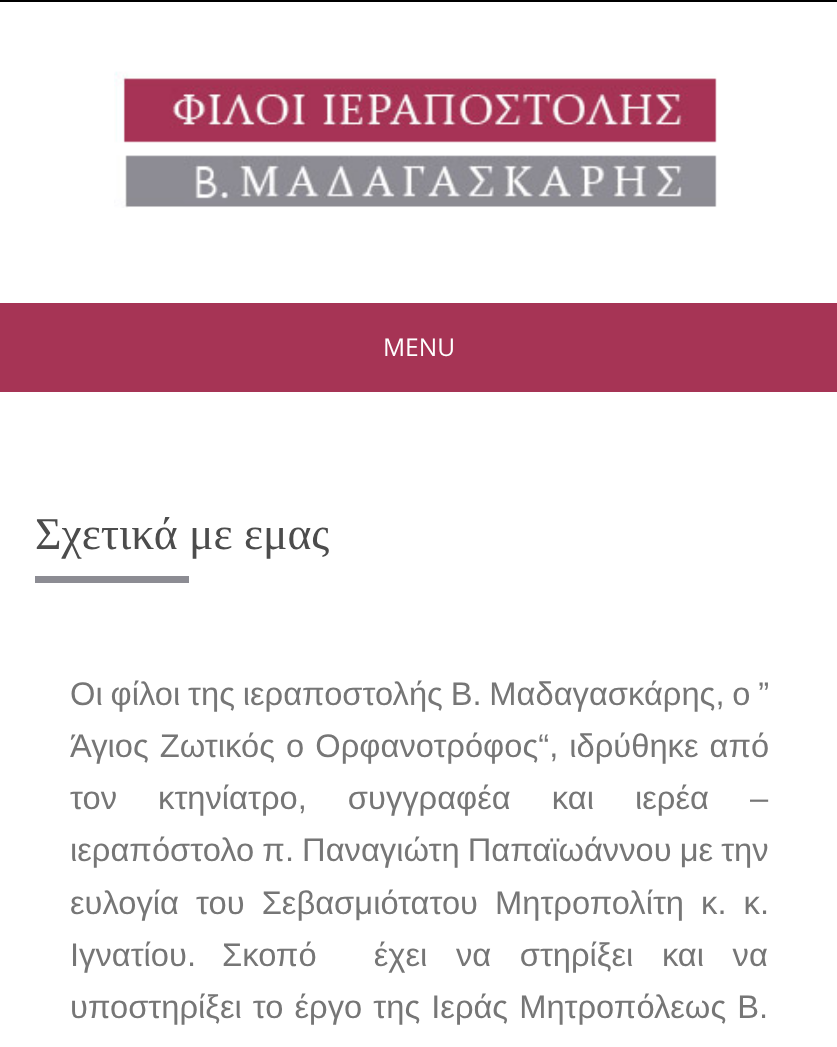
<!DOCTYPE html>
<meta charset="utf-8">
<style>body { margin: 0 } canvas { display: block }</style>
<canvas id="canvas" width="837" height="1047"></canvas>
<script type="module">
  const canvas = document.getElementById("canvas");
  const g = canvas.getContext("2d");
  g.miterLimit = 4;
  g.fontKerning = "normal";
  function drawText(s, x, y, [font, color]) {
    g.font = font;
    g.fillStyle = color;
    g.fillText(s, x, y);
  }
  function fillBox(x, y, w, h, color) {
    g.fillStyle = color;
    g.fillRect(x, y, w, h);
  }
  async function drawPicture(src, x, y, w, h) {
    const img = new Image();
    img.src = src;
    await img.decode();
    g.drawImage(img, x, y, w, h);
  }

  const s1 = ["24.5px Open Sans", "#FFFFFF"];
  const s2 = ["45.5px Liberation Serif", "#4C4C4C"];
  const s3 = ["32.7px Liberation Sans", "#767676"];

  fillBox(0, 0, 837, 1047, "#000000");
  fillBox(0, 2, 837, 301, "#FFFFFF");
  await drawPicture("pic1.png", 114, 71, 603, 137);
  fillBox(0, 303, 837, 89, "#A63455");
  drawText("MENU", 383, 356, s1);
  fillBox(0, 392, 837, 655, "#FFFFFF");
  drawText("Σχετικά με εμας", 35, 549, s2);
  fillBox(35, 576, 154, 7, "#8C8C93");
  g.wordSpacing = "-1.25px";
  drawText("Οι φίλοι της ιεραποστολής Β. Μαδαγασκάρης, ο ”", 70, 705, s3);
  g.wordSpacing = "2px";
  drawText("Άγιος Ζωτικός ο Ορφανοτρόφος“, ιδρύθηκε από", 70, 757, s3);
  g.wordSpacing = "32px";
  drawText("τον κτηνίατρο, συγγραφέα και ιερέα –", 70, 809, s3);
  g.wordSpacing = "-1px";
  drawText("ιεραπόστολο π. Παναγιώτη Παπαϊωάννου με την", 70, 861, s3);
  g.wordSpacing = "8px";
  drawText("ευλογία του Σεβασμιότατου Μητροπολίτη κ. κ.", 70, 914, s3);
  g.wordSpacing = "0px";
  drawText("Ιγνατίου.", 70, 966, s3);
  g.wordSpacing = "19.5px";
  drawText("Σκοπό  έχει να στηρίξει και να", 222, 966, s3);
  g.wordSpacing = "2px";
  drawText("υποστηρίξει το έργο της Ιεράς Μητροπόλεως Β.", 70, 1018, s3);
</script>
